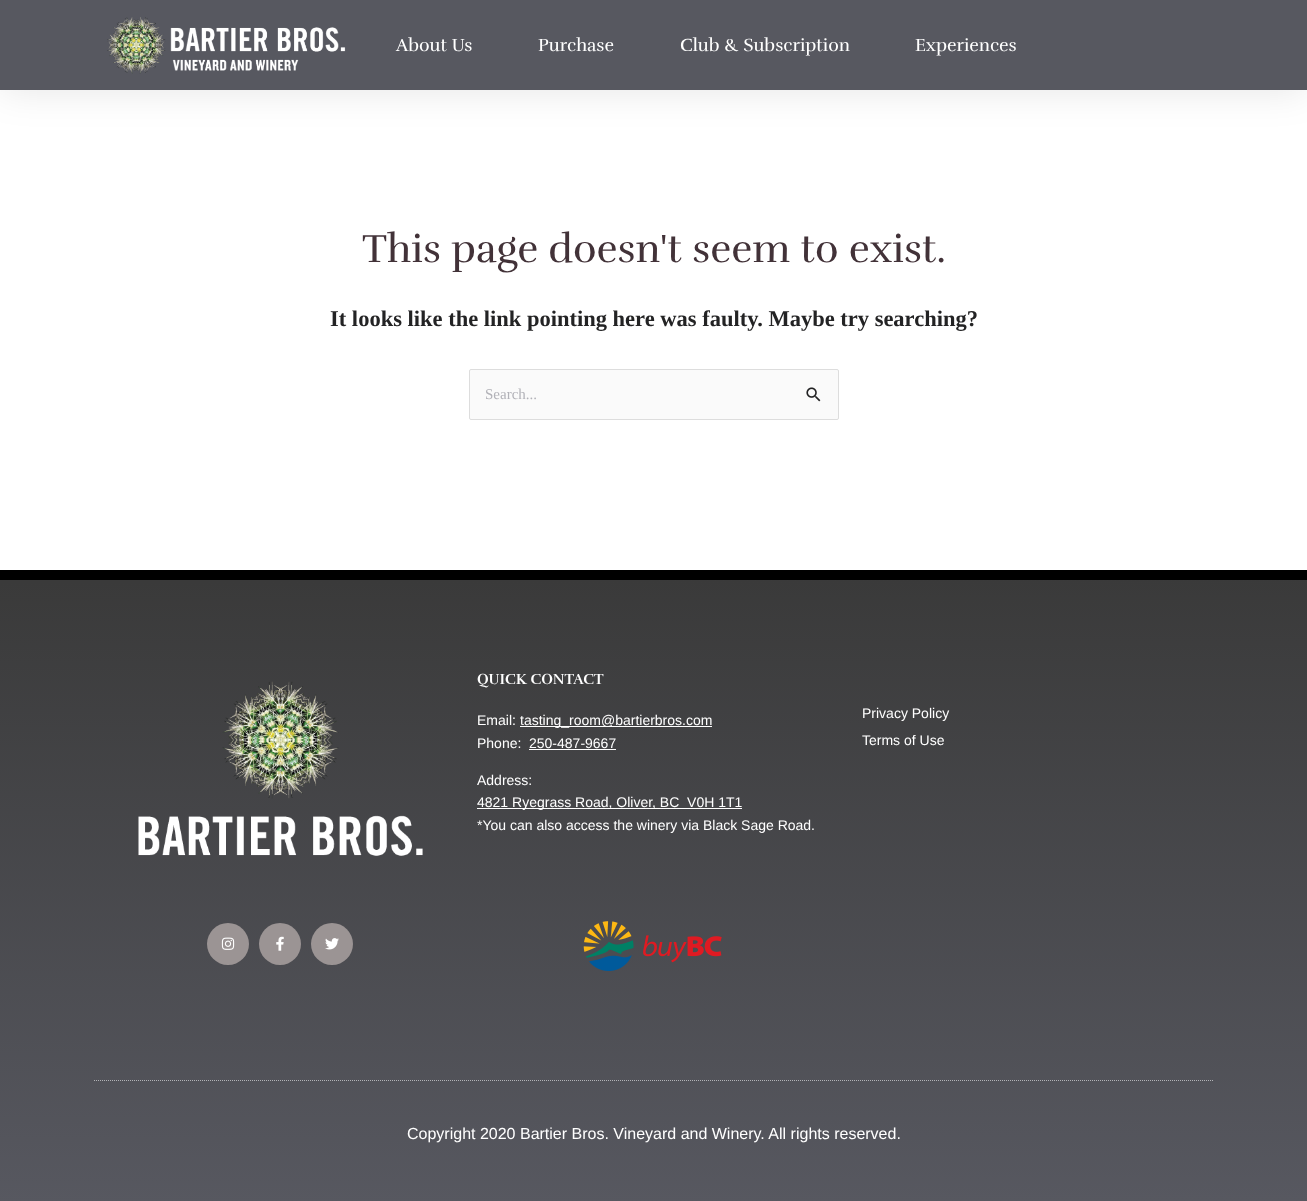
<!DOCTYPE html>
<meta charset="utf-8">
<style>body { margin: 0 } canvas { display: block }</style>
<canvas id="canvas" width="1307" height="1201"></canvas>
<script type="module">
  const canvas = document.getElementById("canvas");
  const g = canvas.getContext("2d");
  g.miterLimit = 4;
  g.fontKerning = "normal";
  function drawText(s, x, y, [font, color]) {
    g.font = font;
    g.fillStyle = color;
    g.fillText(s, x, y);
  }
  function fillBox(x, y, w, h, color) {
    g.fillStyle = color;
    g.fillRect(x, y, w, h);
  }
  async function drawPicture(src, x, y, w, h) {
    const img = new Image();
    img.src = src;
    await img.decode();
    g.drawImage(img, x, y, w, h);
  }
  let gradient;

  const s1 = ["18px Rufina", "#FFFFFF"];
  const s2 = ["40px Rufina", "#423238"];
  const s3 = ["bold 22.5px Liberation Serif", "#232324"];
  const s4 = ["15px Liberation Serif", "#B2B2B8"];
  const s5 = ["bold 15px Rufina", "#FFFFFF"];
  const s6 = ["14px Liberation Sans", "#FFFFFF"];
  const s7 = ["16px Liberation Sans", "#FFFFFF"];

  fillBox(0, 0, 1307, 1201, "#FFFFFF");
  g.fillStyle = "rgba(0, 0, 0, 0.1)";
  g.filter = "blur(19px)";
  g.beginPath();
  g.rect(0, 0, 1307, 90);
  g.fill();
  g.filter = "none";
  fillBox(0, 0, 1307, 90, "#575860");
  await drawPicture("pic1.png", 107, 17, 239, 57);
  drawText("About Us", 396, 51, s1);
  drawText("Purchase", 538, 51, s1);
  drawText("Club & Subscription", 680, 51, s1);
  drawText("Experiences", 915, 51, s1);
  drawText("This page doesn't seem to exist.", 362, 262, s2);
  drawText("It looks like the link pointing here was faulty. Maybe try searching?", 330, 326, s3);
  g.fillStyle = "#FAFAFA";
  g.beginPath();
  g.roundRect(469.5, 369.5, 369, 50, 1.5);
  g.fill();
  g.strokeStyle = "#DDDDDD";
  g.stroke();
  drawText("Search...", 485, 399, s4);
  await drawPicture("pic2.png", 806, 387, 15, 15);
  gradient = g.createLinearGradient(654, 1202, 653, 580);
  gradient.addColorStop(0, "#575860");
  gradient.addColorStop(1, "#3A3A3A");
  g.fillStyle = gradient;
  g.fillRect(0, 580, 1307, 621);
  fillBox(0, 570, 1307, 10, "#000000");
  await drawPicture("pic3.png", 138, 681, 285, 175);
  g.fillStyle = "#9B9494";
  g.beginPath();
  g.arc(228, 944, 21, 0, Math.PI * 2);
  g.fill();
  await drawPicture("pic4.png", 221, 937, 14, 13);
  g.beginPath();
  g.arc(280, 944, 21, 0, Math.PI * 2);
  g.fill();
  await drawPicture("pic5.png", 276, 936, 8, 15);
  g.beginPath();
  g.arc(332, 944, 21, 0, Math.PI * 2);
  g.fill();
  await drawPicture("pic6.png", 325, 938, 14, 12);
  drawText("QUICK CONTACT", 477, 684, s5);
  drawText("Email:", 477, 725, s6);
  fillBox(520, 726, 192, 1, "#FFFFFF");
  drawText("tasting_room@bartierbros.com", 520, 725, s6);
  drawText("Phone:", 477, 748, s6);
  drawText("250-487-9667", 529, 748, s6);
  fillBox(529, 749, 87, 1, "#FFFFFF");
  drawText("Address:", 477, 785, s6);
  fillBox(477, 808, 265, 1, "#FFFFFF");
  drawText("4821 Ryegrass Road, Oliver, BC  V0H 1T1", 477, 807, s6);
  drawText("*You can also access the winery via Black Sage Road.", 477, 830, s6);
  await drawPicture("pic7.png", 583, 921, 139, 50);
  drawText("Privacy Policy", 862, 718, s6);
  drawText("Terms of Use", 862, 745, s6);
  g.beginPath();
  g.moveTo(94, 1080.5);
  g.lineTo(1214, 1080.5);
  g.strokeStyle = "#B2B3B6";
  g.setLineDash([1, 1]);
  g.stroke();
  drawText("Copyright 2020 Bartier Bros. Vineyard and Winery. All rights reserved.", 407, 1139, s7);
</script>
